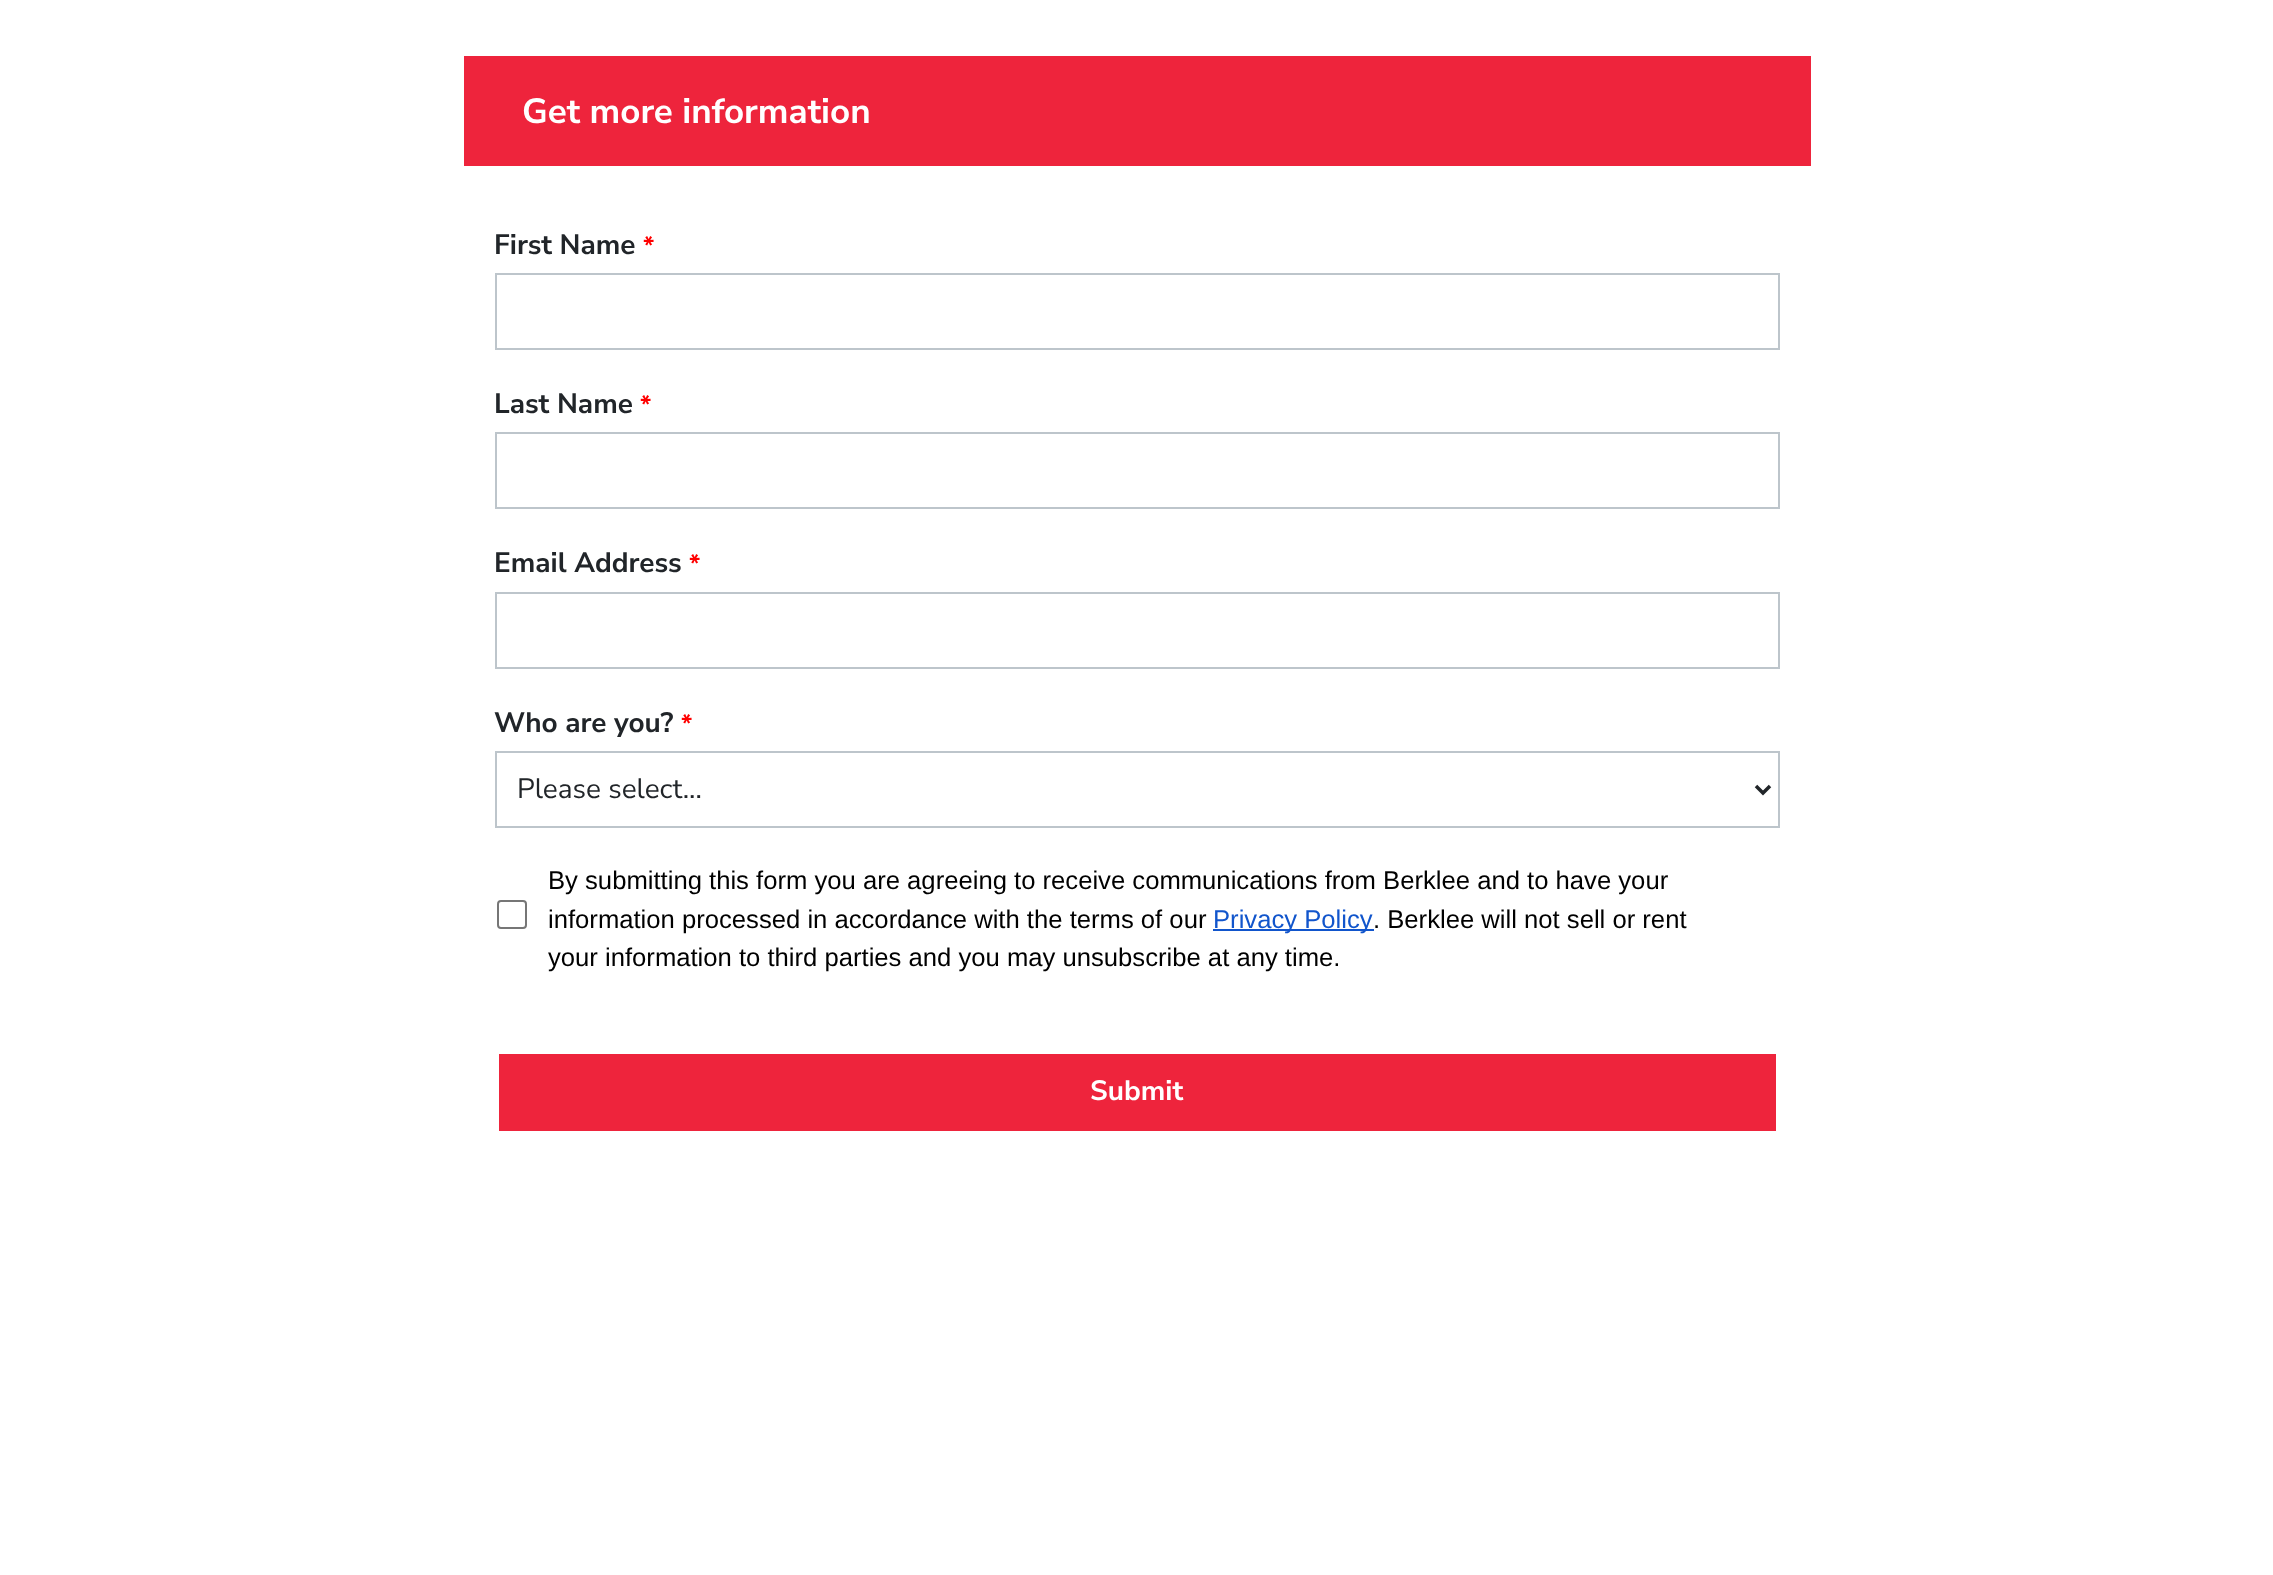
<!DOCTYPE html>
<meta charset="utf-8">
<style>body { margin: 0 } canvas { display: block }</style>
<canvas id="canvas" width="2273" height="1575"></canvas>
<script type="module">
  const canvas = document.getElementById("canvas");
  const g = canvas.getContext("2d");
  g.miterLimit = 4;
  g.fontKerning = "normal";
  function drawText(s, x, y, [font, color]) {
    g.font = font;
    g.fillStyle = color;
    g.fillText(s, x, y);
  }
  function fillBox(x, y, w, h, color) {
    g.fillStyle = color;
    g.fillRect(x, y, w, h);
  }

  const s1 = ["bold 35px Nunito Sans", "#FFFFFF"];
  const s2 = ["bold 28px Nunito Sans", "#212529"];
  const s3 = ["bold 25px Nunito Sans", "#FF0000"];
  const s4 = ["28px Nunito Sans", "#212529"];
  const s5 = ["25.65px Liberation Sans", "#000000"];
  const s6 = ["25.65px Liberation Sans", "#1155CC"];
  const s7 = ["bold 28px Nunito Sans", "#FFFFFF"];

  fillBox(0, 0, 2273, 1575, "#FFFFFF");
  fillBox(464, 56, 1347, 110, "#EE243C");
  drawText("Get more information", 522, 123, s1);
  drawText("First Name", 494, 254, s2);
  drawText("*", 643, 254, s3);
  g.strokeStyle = "#BDC5CB";
  g.lineWidth = 2;
  g.strokeRect(496, 274, 1283, 75);
  drawText("Last Name", 494, 413, s2);
  drawText("*", 640, 413, s3);
  g.strokeRect(496, 433, 1283, 75);
  drawText("Email Address", 494, 572, s2);
  drawText("*", 689, 572, s3);
  g.strokeRect(496, 593, 1283, 75);
  drawText("Who are you?", 494, 732, s2);
  drawText("*", 681, 732, s3);
  g.strokeRect(496, 752, 1283, 75);
  g.beginPath();
  g.moveTo(1756, 786);
  g.lineTo(1763, 793);
  g.lineTo(1770, 786);
  g.strokeStyle = "#212529";
  g.lineWidth = 3.5;
  g.stroke();
  drawText("Please select...", 517, 798, s4);
  g.beginPath();
  g.roundRect(498, 901, 28, 27, 3);
  g.strokeStyle = "#767676";
  g.lineWidth = 2;
  g.stroke();
  drawText("By submitting this form you are agreeing to receive communications from Berklee and to have your", 548, 889, s5);
  drawText("information processed in accordance with the terms of our", 548, 928, s5);
  fillBox(1213, 929, 161, 2, "#1155CC");
  drawText("Privacy Policy", 1213, 928, s6);
  drawText(". Berklee will not sell or rent", 1373, 928, s5);
  drawText("your information to third parties and you may unsubscribe at any time.", 548, 966, s5);
  fillBox(499, 1054, 1277, 77, "#EE243C");
  drawText("Submit", 1090, 1100, s7);
</script>
